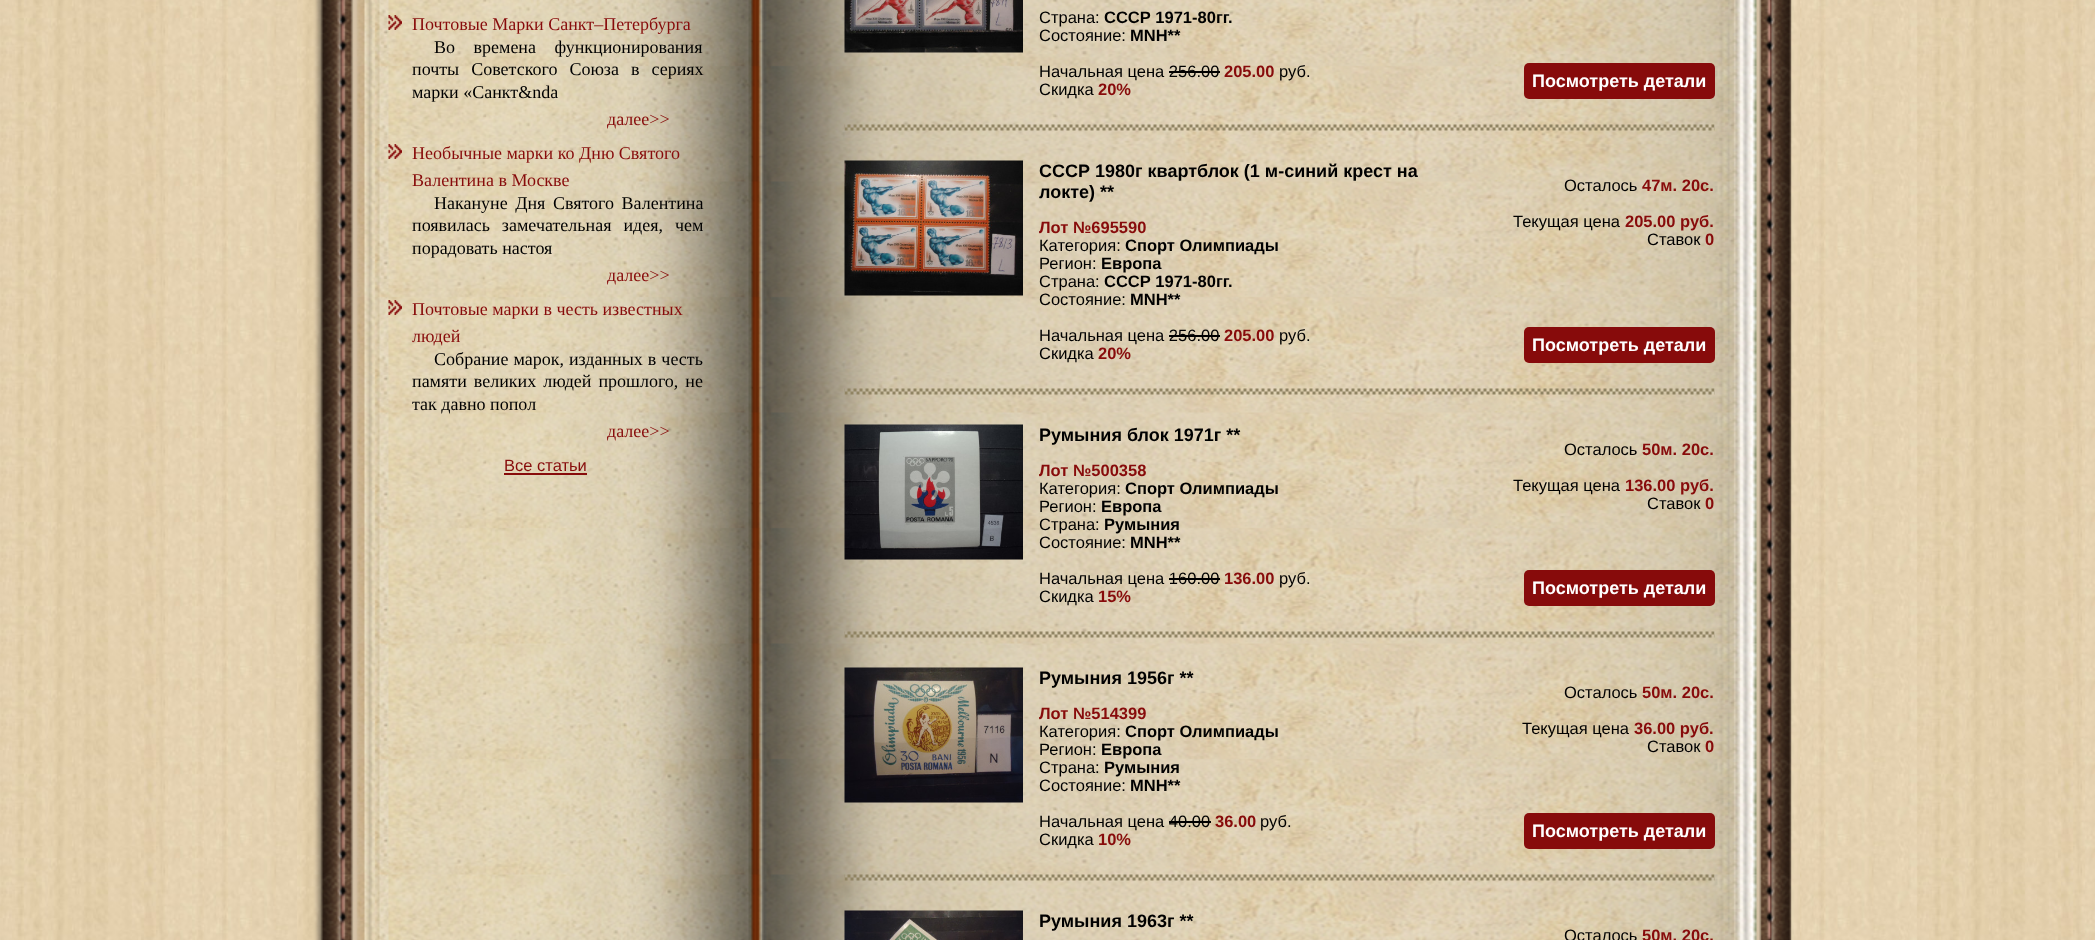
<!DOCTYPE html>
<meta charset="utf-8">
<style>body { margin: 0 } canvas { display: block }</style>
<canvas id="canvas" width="2095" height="940"></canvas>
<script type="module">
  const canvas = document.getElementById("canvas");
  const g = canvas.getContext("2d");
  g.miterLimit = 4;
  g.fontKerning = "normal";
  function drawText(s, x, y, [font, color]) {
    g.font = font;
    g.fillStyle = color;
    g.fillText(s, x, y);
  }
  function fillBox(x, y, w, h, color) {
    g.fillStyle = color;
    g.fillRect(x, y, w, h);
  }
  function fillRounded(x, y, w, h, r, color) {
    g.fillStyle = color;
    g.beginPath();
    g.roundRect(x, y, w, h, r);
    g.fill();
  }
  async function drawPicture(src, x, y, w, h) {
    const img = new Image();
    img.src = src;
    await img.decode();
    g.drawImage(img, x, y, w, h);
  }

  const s1 = ["18px Liberation Serif", "#870B0B"];
  const s2 = ["18px Liberation Serif", "#000000"];
  const s3 = ["16.5px Liberation Sans", "#870B0B"];
  const s4 = ["16.5px Liberation Sans", "#000000"];
  const s5 = ["bold 16.5px Liberation Sans", "#000000"];
  const s6 = ["bold 16.5px Liberation Sans", "#870B0B"];
  const s7 = ["bold 18px Liberation Sans", "#FFFFFF"];
  const s8 = ["bold 18px Liberation Sans", "#000000"];

  fillBox(0, 0, 2095, 940, "#FFFFFF");
  await drawPicture("pic1.png", 0, 0, 2095, 940);
  await drawPicture("pic2.png", 297, 0, 1503, 940);
  await drawPicture("pic3.png", 388, 15, 14, 15);
  drawText("Почтовые Марки Санкт–Петербурга", 412, 30, s1);
  g.wordSpacing = "14px";
  drawText("Во времена функционирования", 434, 53, s2);
  g.wordSpacing = "7.5px";
  drawText("почты Советского Союза в сериях", 412, 75, s2);
  g.wordSpacing = "0px";
  drawText("марки «Санкт&nda", 412, 98, s2);
  drawText("далее>>", 607, 125, s1);
  await drawPicture("pic4.png", 388, 144, 14, 15);
  drawText("Необычные марки ко Дню Святого", 412, 159, s1);
  drawText("Валентина в Москве", 412, 186, s1);
  g.wordSpacing = "3px";
  drawText("Накануне Дня Святого Валентина", 434, 209, s2);
  g.wordSpacing = "7.5px";
  drawText("появилась замечательная идея, чем", 412, 231, s2);
  g.wordSpacing = "0px";
  drawText("порадовать настоя", 412, 254, s2);
  drawText("далее>>", 607, 281, s1);
  await drawPicture("pic5.png", 388, 300, 14, 15);
  drawText("Почтовые марки в честь известных", 412, 315, s1);
  drawText("людей", 412, 342, s1);
  g.wordSpacing = "0.5px";
  drawText("Собрание марок, изданных в честь", 434, 365, s2);
  g.wordSpacing = "2.5px";
  drawText("памяти великих людей прошлого, не", 412, 387, s2);
  g.wordSpacing = "0px";
  drawText("так давно попол", 412, 410, s2);
  drawText("далее>>", 607, 437, s1);
  drawText("Все статьи", 504, 471, s3);
  fillBox(504, 473, 83, 2, "#870B0B");
  await drawPicture("pic6.png", 844, 0, 179, 53);
  drawText("Страна:", 1039, 23, s4);
  drawText("СССР 1971-80гг.", 1104, 23, s5);
  drawText("Состояние:", 1039, 41, s4);
  drawText("MNH**", 1130, 41, s5);
  drawText("Начальная цена 256.00", 1039, 77, s4);
  drawText("205.00", 1224, 77, s6);
  drawText("руб.", 1279, 77, s4);
  fillBox(1169, 71, 51, 2, "#000000");
  fillRounded(1524, 63, 191, 36, 5, "#870B0B");
  drawText("Посмотреть детали", 1532, 87, s7);
  drawText("Скидка", 1039, 95, s4);
  drawText("20%", 1098, 95, s6);
  await drawPicture("pic7.png", 844, 124, 871, 7);
  await drawPicture("pic8.png", 844, 160, 179, 136);
  drawText("СССР 1980г квартблок (1 м-синий крест на", 1039, 177, s8);
  drawText("локте) **", 1039, 198, s8);
  drawText("Осталось", 1564, 191, s4);
  drawText("47м. 20с.", 1642, 191, s6);
  drawText("Текущая цена", 1513, 227, s4);
  drawText("205.00 руб.", 1625, 227, s6);
  drawText("Ставок", 1647, 245, s4);
  drawText("0", 1705, 245, s6);
  drawText("Лот №695590", 1039, 233, s6);
  drawText("Категория:", 1039, 251, s4);
  drawText("Спорт Олимпиады", 1125, 251, s5);
  drawText("Регион:", 1039, 269, s4);
  drawText("Европа", 1101, 269, s5);
  drawText("Страна:", 1039, 287, s4);
  drawText("СССР 1971-80гг.", 1104, 287, s5);
  drawText("Состояние:", 1039, 305, s4);
  drawText("MNH**", 1130, 305, s5);
  drawText("Начальная цена 256.00", 1039, 341, s4);
  drawText("205.00", 1224, 341, s6);
  drawText("руб.", 1279, 341, s4);
  fillBox(1169, 335, 51, 2, "#000000");
  fillRounded(1524, 327, 191, 36, 5, "#870B0B");
  drawText("Посмотреть детали", 1532, 351, s7);
  drawText("Скидка", 1039, 359, s4);
  drawText("20%", 1098, 359, s6);
  await drawPicture("pic9.png", 844, 388, 871, 7);
  await drawPicture("pic10.png", 844, 424, 179, 136);
  drawText("Румыния блок 1971г **", 1039, 441, s8);
  drawText("Лот №500358", 1039, 476, s6);
  drawText("Осталось", 1564, 455, s4);
  drawText("50м. 20с.", 1642, 455, s6);
  drawText("Текущая цена", 1513, 491, s4);
  drawText("136.00 руб.", 1625, 491, s6);
  drawText("Ставок", 1647, 509, s4);
  drawText("0", 1705, 509, s6);
  drawText("Категория:", 1039, 494, s4);
  drawText("Спорт Олимпиады", 1125, 494, s5);
  drawText("Регион:", 1039, 512, s4);
  drawText("Европа", 1101, 512, s5);
  drawText("Страна:", 1039, 530, s4);
  drawText("Румыния", 1104, 530, s5);
  drawText("Состояние:", 1039, 548, s4);
  drawText("MNH**", 1130, 548, s5);
  drawText("Начальная цена 160.00", 1039, 584, s4);
  drawText("136.00", 1224, 584, s6);
  drawText("руб.", 1279, 584, s4);
  fillBox(1169, 578, 51, 2, "#000000");
  fillRounded(1524, 570, 191, 36, 5, "#870B0B");
  drawText("Посмотреть детали", 1532, 594, s7);
  drawText("Скидка", 1039, 602, s4);
  drawText("15%", 1098, 602, s6);
  await drawPicture("pic11.png", 844, 631, 871, 7);
  await drawPicture("pic12.png", 844, 667, 179, 136);
  drawText("Румыния 1956г **", 1039, 684, s8);
  drawText("Лот №514399", 1039, 719, s6);
  drawText("Осталось", 1564, 698, s4);
  drawText("50м. 20с.", 1642, 698, s6);
  drawText("Текущая цена", 1522, 734, s4);
  drawText("36.00 руб.", 1634, 734, s6);
  drawText("Ставок", 1647, 752, s4);
  drawText("0", 1705, 752, s6);
  drawText("Категория:", 1039, 737, s4);
  drawText("Спорт Олимпиады", 1125, 737, s5);
  drawText("Регион:", 1039, 755, s4);
  drawText("Европа", 1101, 755, s5);
  drawText("Страна:", 1039, 773, s4);
  drawText("Румыния", 1104, 773, s5);
  drawText("Состояние:", 1039, 791, s4);
  drawText("MNH**", 1130, 791, s5);
  drawText("Начальная цена 40.00", 1039, 827, s4);
  drawText("36.00", 1215, 827, s6);
  drawText("руб.", 1260, 827, s4);
  fillBox(1169, 821, 42, 2, "#000000");
  fillRounded(1524, 813, 191, 36, 5, "#870B0B");
  drawText("Посмотреть детали", 1532, 837, s7);
  drawText("Скидка", 1039, 845, s4);
  drawText("10%", 1098, 845, s6);
  await drawPicture("pic13.png", 844, 874, 871, 7);
  await drawPicture("pic14.png", 844, 910, 179, 30);
  drawText("Румыния 1963г **", 1039, 927, s8);
  drawText("Осталось", 1564, 941, s4);
  drawText("50м. 20с.", 1642, 941, s6);
</script>
